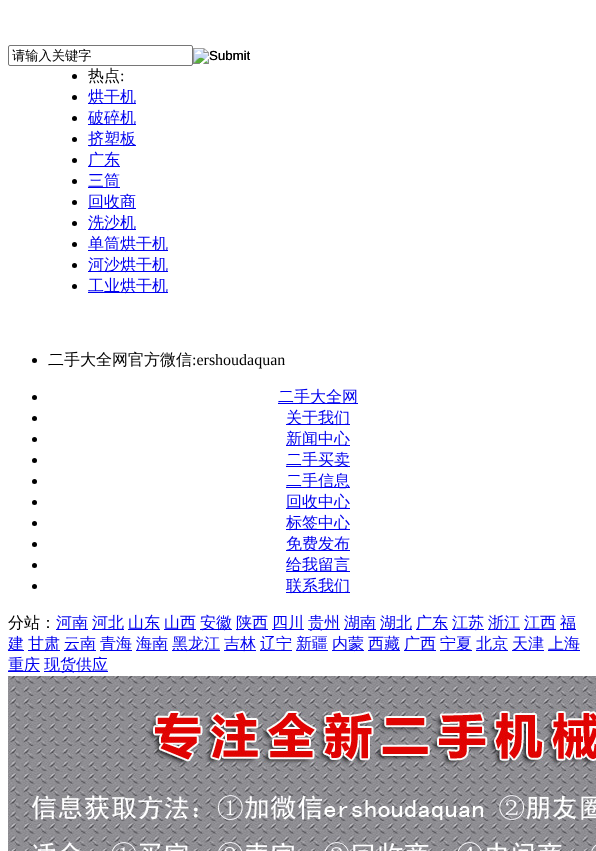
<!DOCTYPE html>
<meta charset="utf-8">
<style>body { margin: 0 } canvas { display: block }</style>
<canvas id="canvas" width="596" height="851"></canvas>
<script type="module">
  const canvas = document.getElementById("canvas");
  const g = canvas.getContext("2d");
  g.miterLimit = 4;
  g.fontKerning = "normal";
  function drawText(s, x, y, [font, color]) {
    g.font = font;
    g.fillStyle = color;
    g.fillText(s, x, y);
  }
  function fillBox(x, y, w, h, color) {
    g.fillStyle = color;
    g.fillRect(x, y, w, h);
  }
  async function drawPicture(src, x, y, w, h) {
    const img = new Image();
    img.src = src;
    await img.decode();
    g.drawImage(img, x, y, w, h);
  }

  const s1 = ["500 13.25px WenQuanYi Zen Hei", "#000000"];
  const s2 = ["13.25px Liberation Sans", "#000000"];
  const s3 = ["500 16px WenQuanYi Zen Hei", "#000000"];
  const s4 = ["16px Liberation Serif", "#000000"];
  const s5 = ["500 16px WenQuanYi Zen Hei", "#0000EE"];

  fillBox(0, 0, 596, 851, "#FFFFFF");
  g.beginPath();
  g.roundRect(8.5, 45.5, 184, 20, 1.5);
  g.strokeStyle = "#767676";
  g.stroke();
  drawText("请输入关键字", 12, 60, s1);
  await drawPicture("pic1.png", 193, 48, 57, 16);
  drawText("Submit", 209, 60, s2);
  g.beginPath();
  g.arc(74.5, 76.5, 2.5, 0, Math.PI * 2);
  g.fill();
  drawText("热点", 88, 81, s3);
  drawText(":", 120, 81, s4);
  g.beginPath();
  g.arc(74.5, 97.5, 2.5, 0, Math.PI * 2);
  g.fill();
  fillBox(88, 103, 48, 1, "#0000EE");
  drawText("烘干机", 88, 102, s5);
  g.fillStyle = "#000000";
  g.beginPath();
  g.arc(74.5, 118.5, 2.5, 0, Math.PI * 2);
  g.fill();
  fillBox(88, 124, 48, 1, "#0000EE");
  drawText("破碎机", 88, 123, s5);
  g.fillStyle = "#000000";
  g.beginPath();
  g.arc(74.5, 139.5, 2.5, 0, Math.PI * 2);
  g.fill();
  fillBox(88, 145, 48, 1, "#0000EE");
  drawText("挤塑板", 88, 144, s5);
  g.fillStyle = "#000000";
  g.beginPath();
  g.arc(74.5, 160.5, 2.5, 0, Math.PI * 2);
  g.fill();
  fillBox(88, 166, 32, 1, "#0000EE");
  drawText("广东", 88, 165, s5);
  g.fillStyle = "#000000";
  g.beginPath();
  g.arc(74.5, 181.5, 2.5, 0, Math.PI * 2);
  g.fill();
  fillBox(88, 187, 32, 1, "#0000EE");
  drawText("三筒", 88, 186, s5);
  g.fillStyle = "#000000";
  g.beginPath();
  g.arc(74.5, 202.5, 2.5, 0, Math.PI * 2);
  g.fill();
  fillBox(88, 208, 48, 1, "#0000EE");
  drawText("回收商", 88, 207, s5);
  g.fillStyle = "#000000";
  g.beginPath();
  g.arc(74.5, 223.5, 2.5, 0, Math.PI * 2);
  g.fill();
  fillBox(88, 229, 48, 1, "#0000EE");
  drawText("洗沙机", 88, 228, s5);
  g.fillStyle = "#000000";
  g.beginPath();
  g.arc(74.5, 244.5, 2.5, 0, Math.PI * 2);
  g.fill();
  fillBox(88, 250, 80, 1, "#0000EE");
  drawText("单筒烘干机", 88, 249, s5);
  g.fillStyle = "#000000";
  g.beginPath();
  g.arc(74.5, 265.5, 2.5, 0, Math.PI * 2);
  g.fill();
  fillBox(88, 271, 80, 1, "#0000EE");
  drawText("河沙烘干机", 88, 270, s5);
  g.fillStyle = "#000000";
  g.beginPath();
  g.arc(74.5, 286.5, 2.5, 0, Math.PI * 2);
  g.fill();
  fillBox(88, 292, 80, 1, "#0000EE");
  drawText("工业烘干机", 88, 291, s5);
  g.fillStyle = "#000000";
  g.beginPath();
  g.arc(34.5, 360.5, 2.5, 0, Math.PI * 2);
  g.fill();
  drawText("二手大全网官方微信", 48, 365, s3);
  drawText(":ershoudaquan", 192, 365, s4);
  g.beginPath();
  g.arc(34.5, 397.5, 2.5, 0, Math.PI * 2);
  g.fill();
  fillBox(278, 403, 80, 1, "#0000EE");
  drawText("二手大全网", 278, 402, s5);
  g.fillStyle = "#000000";
  g.beginPath();
  g.arc(34.5, 418.5, 2.5, 0, Math.PI * 2);
  g.fill();
  fillBox(286, 424, 64, 1, "#0000EE");
  drawText("关于我们", 286, 423, s5);
  g.fillStyle = "#000000";
  g.beginPath();
  g.arc(34.5, 439.5, 2.5, 0, Math.PI * 2);
  g.fill();
  fillBox(286, 445, 64, 1, "#0000EE");
  drawText("新闻中心", 286, 444, s5);
  g.fillStyle = "#000000";
  g.beginPath();
  g.arc(34.5, 460.5, 2.5, 0, Math.PI * 2);
  g.fill();
  fillBox(286, 466, 64, 1, "#0000EE");
  drawText("二手买卖", 286, 465, s5);
  g.fillStyle = "#000000";
  g.beginPath();
  g.arc(34.5, 481.5, 2.5, 0, Math.PI * 2);
  g.fill();
  fillBox(286, 487, 64, 1, "#0000EE");
  drawText("二手信息", 286, 486, s5);
  g.fillStyle = "#000000";
  g.beginPath();
  g.arc(34.5, 502.5, 2.5, 0, Math.PI * 2);
  g.fill();
  fillBox(286, 508, 64, 1, "#0000EE");
  drawText("回收中心", 286, 507, s5);
  g.fillStyle = "#000000";
  g.beginPath();
  g.arc(34.5, 523.5, 2.5, 0, Math.PI * 2);
  g.fill();
  fillBox(286, 529, 64, 1, "#0000EE");
  drawText("标签中心", 286, 528, s5);
  g.fillStyle = "#000000";
  g.beginPath();
  g.arc(34.5, 544.5, 2.5, 0, Math.PI * 2);
  g.fill();
  fillBox(286, 550, 64, 1, "#0000EE");
  drawText("免费发布", 286, 549, s5);
  g.fillStyle = "#000000";
  g.beginPath();
  g.arc(34.5, 565.5, 2.5, 0, Math.PI * 2);
  g.fill();
  fillBox(286, 571, 64, 1, "#0000EE");
  drawText("给我留言", 286, 570, s5);
  g.fillStyle = "#000000";
  g.beginPath();
  g.arc(34.5, 586.5, 2.5, 0, Math.PI * 2);
  g.fill();
  fillBox(286, 592, 64, 1, "#0000EE");
  drawText("联系我们", 286, 591, s5);
  drawText("分站：", 8, 628, s3);
  fillBox(56, 629, 32, 1, "#0000EE");
  drawText("河南", 56, 628, s5);
  fillBox(92, 629, 32, 1, "#0000EE");
  drawText("河北", 92, 628, s5);
  fillBox(128, 629, 32, 1, "#0000EE");
  drawText("山东", 128, 628, s5);
  fillBox(164, 629, 32, 1, "#0000EE");
  drawText("山西", 164, 628, s5);
  fillBox(200, 629, 32, 1, "#0000EE");
  drawText("安徽", 200, 628, s5);
  fillBox(236, 629, 32, 1, "#0000EE");
  drawText("陕西", 236, 628, s5);
  fillBox(272, 629, 32, 1, "#0000EE");
  drawText("四川", 272, 628, s5);
  fillBox(308, 629, 32, 1, "#0000EE");
  drawText("贵州", 308, 628, s5);
  fillBox(344, 629, 32, 1, "#0000EE");
  drawText("湖南", 344, 628, s5);
  fillBox(380, 629, 32, 1, "#0000EE");
  drawText("湖北", 380, 628, s5);
  fillBox(416, 629, 32, 1, "#0000EE");
  drawText("广东", 416, 628, s5);
  fillBox(452, 629, 32, 1, "#0000EE");
  drawText("江苏", 452, 628, s5);
  fillBox(488, 629, 32, 1, "#0000EE");
  drawText("浙江", 488, 628, s5);
  fillBox(524, 629, 32, 1, "#0000EE");
  drawText("江西", 524, 628, s5);
  fillBox(560, 629, 16, 1, "#0000EE");
  drawText("福", 560, 628, s5);
  fillBox(8, 650, 16, 1, "#0000EE");
  drawText("建", 8, 649, s5);
  fillBox(28, 650, 32, 1, "#0000EE");
  drawText("甘肃", 28, 649, s5);
  fillBox(64, 650, 32, 1, "#0000EE");
  drawText("云南", 64, 649, s5);
  fillBox(100, 650, 32, 1, "#0000EE");
  drawText("青海", 100, 649, s5);
  fillBox(136, 650, 32, 1, "#0000EE");
  drawText("海南", 136, 649, s5);
  fillBox(172, 650, 48, 1, "#0000EE");
  drawText("黑龙江", 172, 649, s5);
  fillBox(224, 650, 32, 1, "#0000EE");
  drawText("吉林", 224, 649, s5);
  fillBox(260, 650, 32, 1, "#0000EE");
  drawText("辽宁", 260, 649, s5);
  fillBox(296, 650, 32, 1, "#0000EE");
  drawText("新疆", 296, 649, s5);
  fillBox(332, 650, 32, 1, "#0000EE");
  drawText("内蒙", 332, 649, s5);
  fillBox(368, 650, 32, 1, "#0000EE");
  drawText("西藏", 368, 649, s5);
  fillBox(404, 650, 32, 1, "#0000EE");
  drawText("广西", 404, 649, s5);
  fillBox(440, 650, 32, 1, "#0000EE");
  drawText("宁夏", 440, 649, s5);
  fillBox(476, 650, 32, 1, "#0000EE");
  drawText("北京", 476, 649, s5);
  fillBox(512, 650, 32, 1, "#0000EE");
  drawText("天津", 512, 649, s5);
  fillBox(548, 650, 32, 1, "#0000EE");
  drawText("上海", 548, 649, s5);
  fillBox(8, 671, 32, 1, "#0000EE");
  drawText("重庆", 8, 670, s5);
  fillBox(44, 671, 64, 1, "#0000EE");
  drawText("现货供应", 44, 670, s5);
  await drawPicture("pic2.png", 8, 676, 588, 175);
</script>
